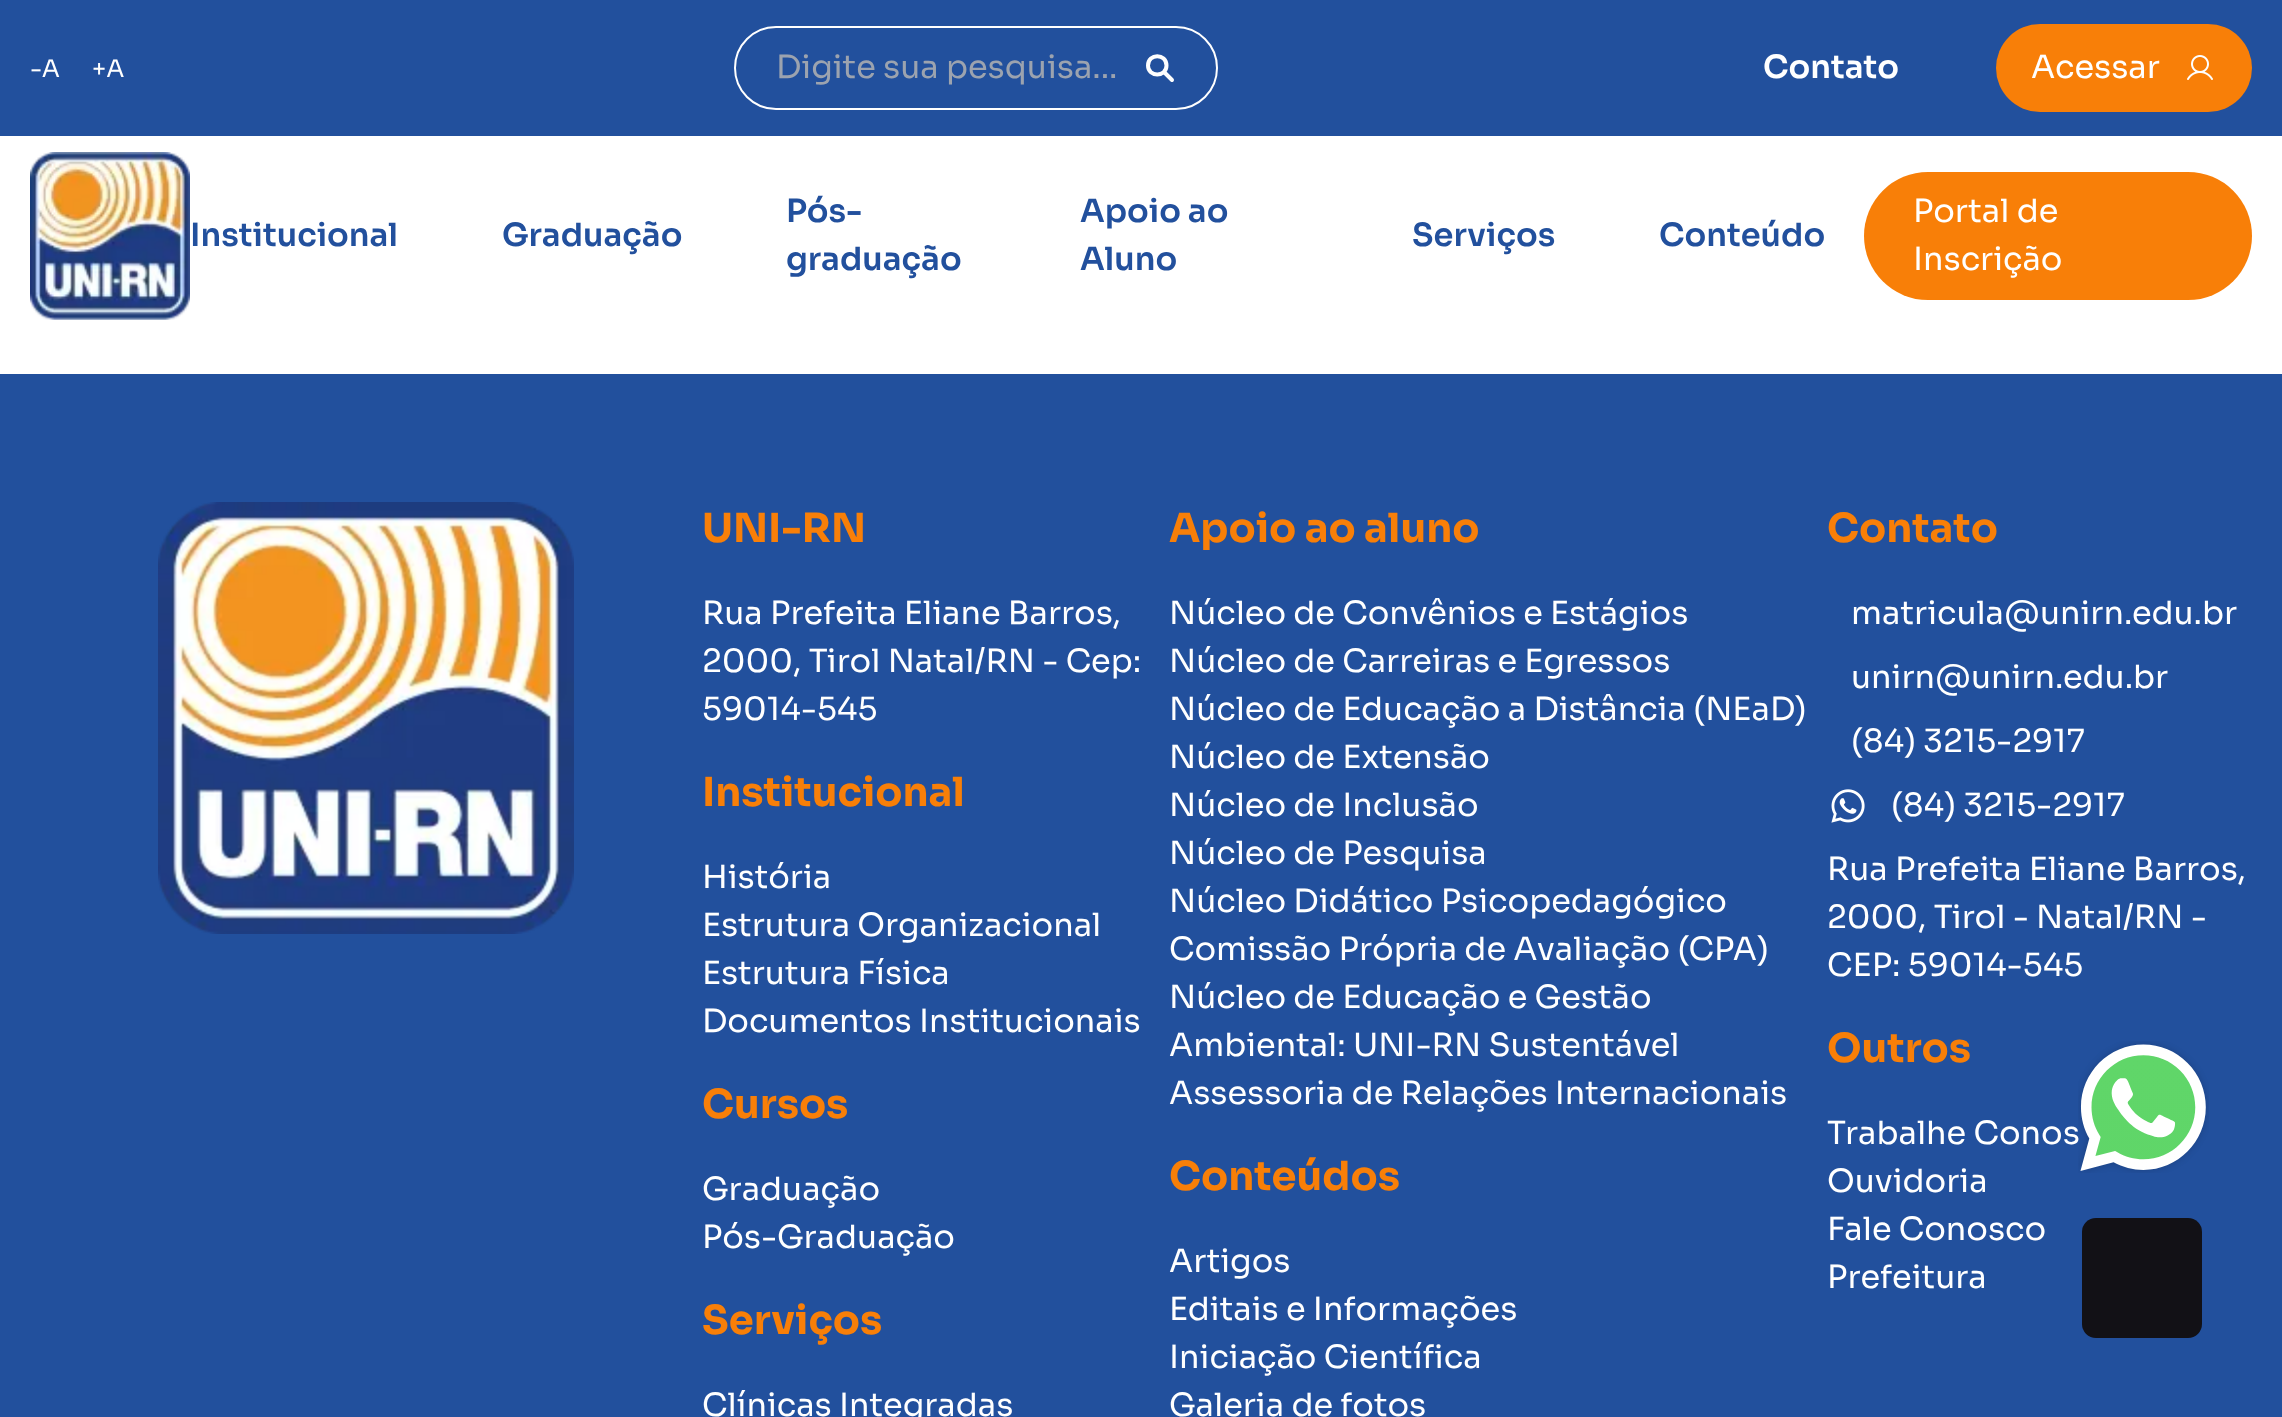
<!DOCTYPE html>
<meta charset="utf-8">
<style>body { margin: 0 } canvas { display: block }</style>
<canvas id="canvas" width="2282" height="1417"></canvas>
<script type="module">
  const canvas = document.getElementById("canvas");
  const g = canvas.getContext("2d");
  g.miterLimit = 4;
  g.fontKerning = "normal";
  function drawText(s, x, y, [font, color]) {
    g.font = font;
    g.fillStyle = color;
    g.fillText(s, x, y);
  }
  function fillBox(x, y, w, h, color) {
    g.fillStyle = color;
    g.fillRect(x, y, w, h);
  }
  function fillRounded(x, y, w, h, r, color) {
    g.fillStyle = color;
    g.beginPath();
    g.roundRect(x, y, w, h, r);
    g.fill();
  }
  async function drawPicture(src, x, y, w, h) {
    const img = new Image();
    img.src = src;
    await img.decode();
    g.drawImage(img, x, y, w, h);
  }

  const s1 = ["24px Sora", "#FFFFFF"];
  const s2 = ["32px Sora", "#9CA3AF"];
  const s3 = ["600 32px Sora", "#FFFFFF"];
  const s4 = ["32px Sora", "#FFFFFF"];
  const s5 = ["600 32px Sora", "#22509D"];
  const s6 = ["bold 40px Sora", "#F87F08"];

  fillBox(0, 0, 2282, 1417, "#FFFFFF");
  fillBox(0, 0, 2282, 136, "#22509D");
  drawText("-A", 30, 77, s1);
  drawText("+A", 92, 77, s1);
  g.beginPath();
  g.roundRect(735, 27, 482, 82, 41);
  g.strokeStyle = "#FFFFFF";
  g.lineWidth = 2;
  g.stroke();
  drawText("Digite sua pesquisa...", 776, 78, s2);
  g.beginPath();
  g.moveTo(1172, 80);
  g.lineTo(1164, 72);
  g.moveTo(1148, 65.5);
  g.bezierCurveTo(1148, 77.5, 1166.5, 77.5, 1166.5, 65.5);
  g.bezierCurveTo(1166.5, 53, 1148, 53, 1148, 65.5);
  g.closePath();
  g.strokeStyle = "#FEFEFE";
  g.lineWidth = 4;
  g.lineCap = "round";
  g.lineJoin = "round";
  g.stroke();
  drawText("Contato", 1763, 78, s3);
  fillRounded(1996, 24, 256, 88, 44, "#F87F08");
  drawText("Acessar", 2031, 78, s4);
  await drawPicture("pic1.png", 2187, 55, 26, 25);
  await drawPicture("pic2.png", 30, 152, 160, 168);
  drawText("Institucional", 190, 246, s5);
  drawText("Graduação", 502, 246, s5);
  drawText("Pós-", 786, 222, s5);
  drawText("graduação", 786, 270, s5);
  drawText("Apoio ao", 1080, 222, s5);
  drawText("Aluno", 1080, 270, s5);
  drawText("Serviços", 1412, 246, s5);
  drawText("Conteúdo", 1659, 246, s5);
  fillRounded(1864, 172, 388, 128, 64, "#F87F08");
  drawText("Portal de", 1913, 222, s4);
  drawText("Inscrição", 1913, 270, s4);
  fillBox(0, 374, 2282, 1043, "#22509D");
  await drawPicture("pic3.png", 158, 502, 416, 432);
  drawText("UNI-RN", 702, 542, s6);
  drawText("Rua Prefeita Eliane Barros,", 702, 624, s4);
  drawText("2000, Tirol Natal/RN - Cep:", 702, 672, s4);
  drawText("59014-545", 702, 720, s4);
  drawText("Institucional", 702, 806, s6);
  drawText("História", 702, 888, s4);
  drawText("Estrutura Organizacional", 702, 936, s4);
  drawText("Estrutura Física", 702, 984, s4);
  drawText("Documentos Institucionais", 702, 1032, s4);
  drawText("Cursos", 702, 1118, s6);
  drawText("Graduação", 702, 1200, s4);
  drawText("Pós-Graduação", 702, 1248, s4);
  drawText("Serviços", 702, 1334, s6);
  drawText("Clínicas Integradas", 702, 1416, s4);
  drawText("Apoio ao aluno", 1169, 542, s6);
  drawText("Núcleo de Convênios e Estágios", 1169, 624, s4);
  drawText("Núcleo de Carreiras e Egressos", 1169, 672, s4);
  drawText("Núcleo de Educação a Distância (NEaD)", 1169, 720, s4);
  drawText("Núcleo de Extensão", 1169, 768, s4);
  drawText("Núcleo de Inclusão", 1169, 816, s4);
  drawText("Núcleo de Pesquisa", 1169, 864, s4);
  drawText("Núcleo Didático Psicopedagógico", 1169, 912, s4);
  drawText("Comissão Própria de Avaliação (CPA)", 1169, 960, s4);
  drawText("Núcleo de Educação e Gestão", 1169, 1008, s4);
  drawText("Ambiental: UNI-RN Sustentável", 1169, 1056, s4);
  drawText("Assessoria de Relações Internacionais", 1169, 1104, s4);
  drawText("Conteúdos", 1169, 1190, s6);
  drawText("Artigos", 1169, 1272, s4);
  drawText("Editais e Informações", 1169, 1320, s4);
  drawText("Iniciação Científica", 1169, 1368, s4);
  drawText("Galeria de fotos", 1169, 1416, s4);
  drawText("Contato", 1827, 542, s6);
  drawText("matricula@unirn.edu.br", 1851, 624, s4);
  drawText("unirn@unirn.edu.br", 1851, 688, s4);
  drawText("(84) 3215-2917", 1851, 752, s4);
  await drawPicture("pic4.png", 1831, 789, 34, 34);
  drawText("(84) 3215-2917", 1891, 816, s4);
  drawText("Rua Prefeita Eliane Barros,", 1827, 880, s4);
  drawText("2000, Tirol - Natal/RN -", 1827, 928, s4);
  drawText("CEP: 59014-545", 1827, 976, s4);
  drawText("Outros", 1827, 1062, s6);
  drawText("Trabalhe Conos", 1827, 1144, s4);
  drawText("Ouvidoria", 1827, 1192, s4);
  drawText("Fale Conosco", 1827, 1240, s4);
  drawText("Prefeitura", 1827, 1288, s4);
  await drawPicture("pic5.png", 2078, 1041, 131, 132);
  fillRounded(2082, 1218, 120, 120, 14, "#121116");
</script>
